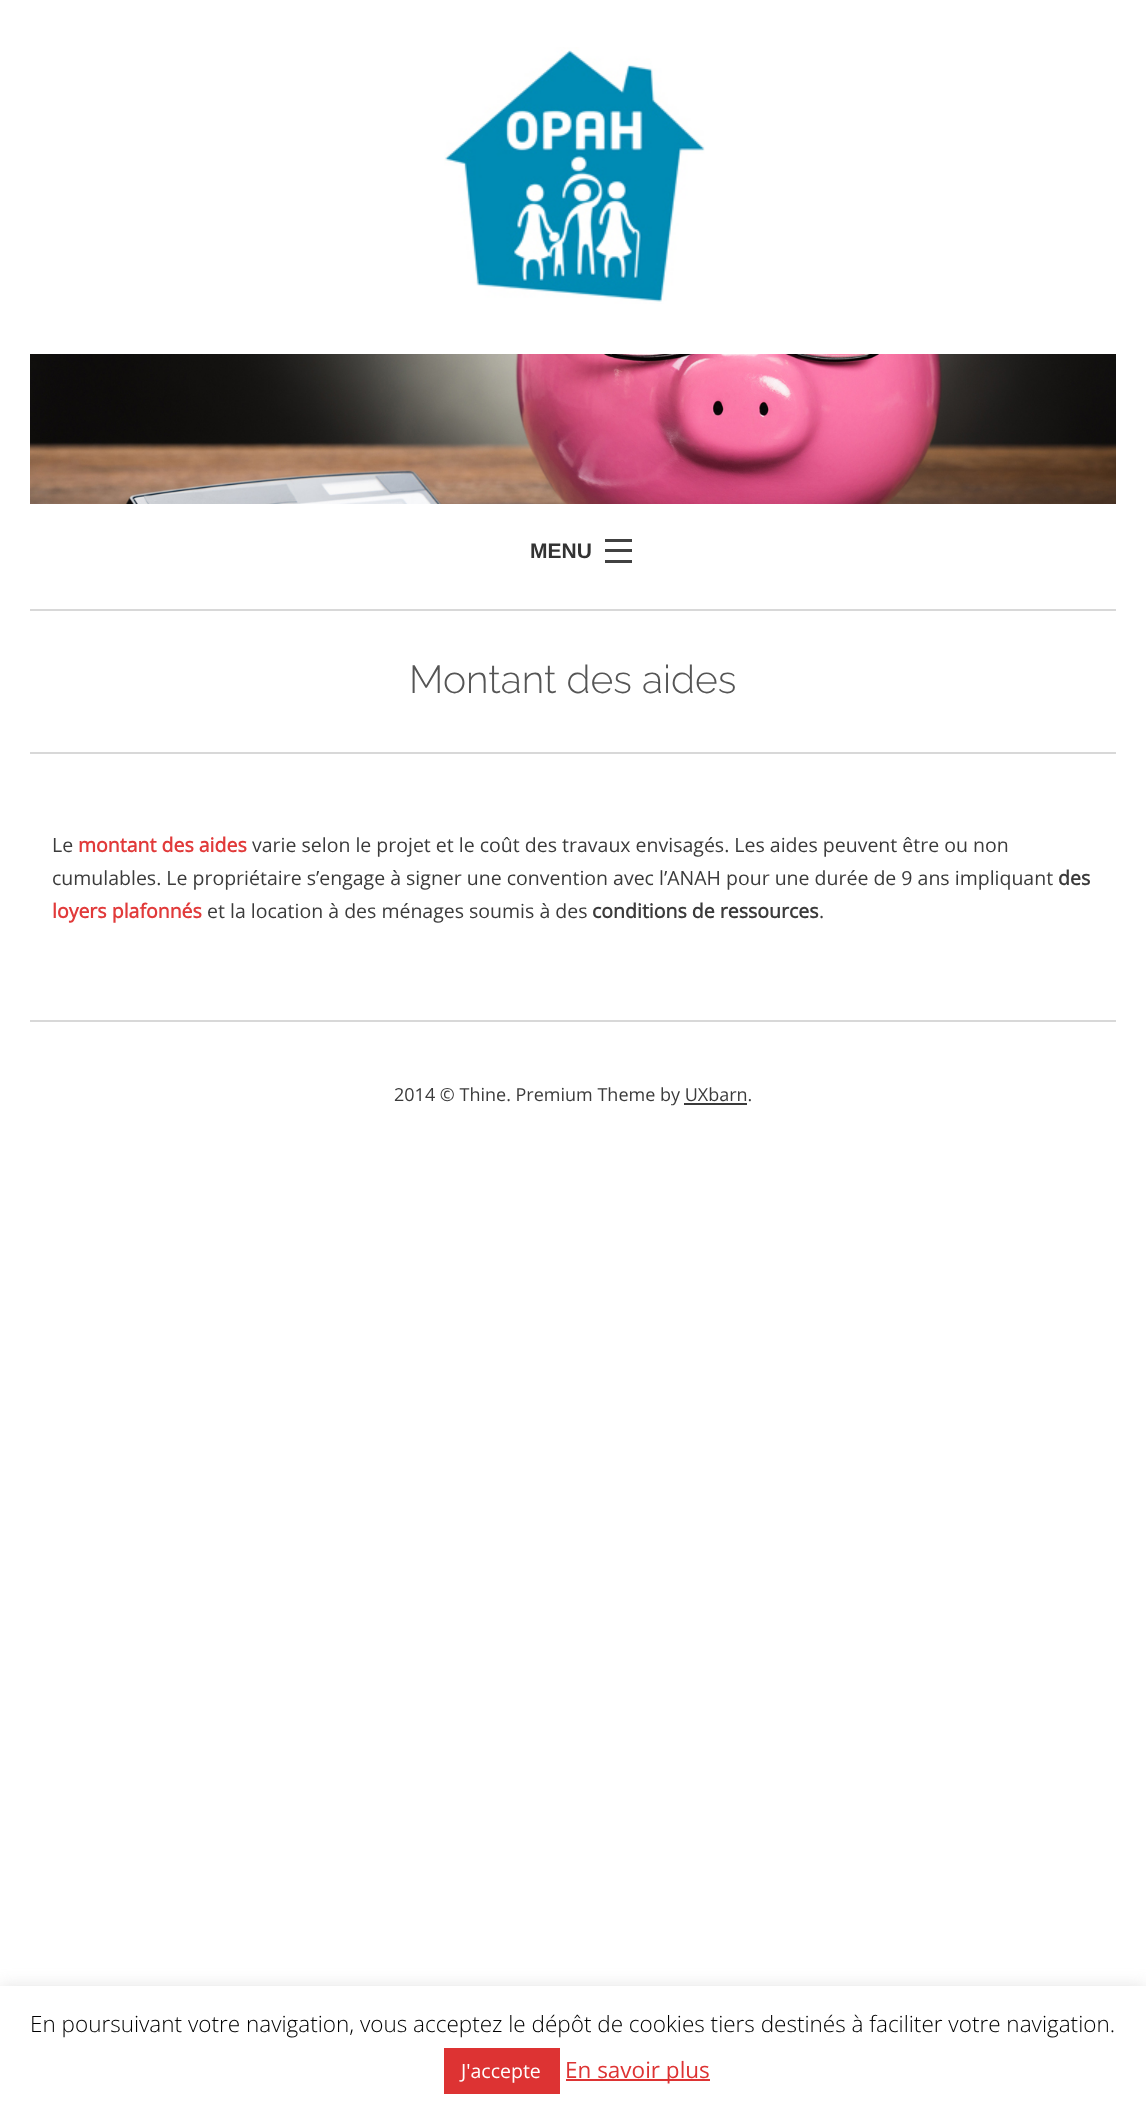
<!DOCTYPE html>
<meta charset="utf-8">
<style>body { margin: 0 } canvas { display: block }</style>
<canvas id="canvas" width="1146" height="2112"></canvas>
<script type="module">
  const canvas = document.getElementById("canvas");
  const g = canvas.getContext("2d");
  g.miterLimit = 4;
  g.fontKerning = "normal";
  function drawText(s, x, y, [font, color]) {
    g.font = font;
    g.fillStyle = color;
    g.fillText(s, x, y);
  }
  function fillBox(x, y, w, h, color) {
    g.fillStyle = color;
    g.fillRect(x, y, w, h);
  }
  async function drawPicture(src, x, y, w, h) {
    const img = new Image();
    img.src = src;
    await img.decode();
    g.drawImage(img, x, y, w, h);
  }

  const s1 = ["bold 21px Liberation Sans", "#333333"];
  const s2 = ["300 39px Raleway", "#555555"];
  const s3 = ["19.5px Open Sans", "#3B3B3B"];
  const s4 = ["bold 19.5px Open Sans", "#E13A3A"];
  const s5 = ["bold 19.5px Open Sans", "#3B3B3B"];
  const s6 = ["18px Open Sans", "#3B3B3B"];
  const s7 = ["300 22.5px Open Sans", "#000000"];
  const s8 = ["19.5px Open Sans", "#FFFFFF"];
  const s9 = ["22.5px Open Sans", "#DD3333"];

  fillBox(0, 0, 1146, 2112, "#FFFFFF");
  await drawPicture("pic1.png", 444, 47, 261, 257);
  await drawPicture("pic2.png", 30, 354, 1086, 150);
  drawText("MENU", 530, 558, s1);
  fillBox(605, 560, 27, 3, "#414141");
  fillBox(605, 549, 27, 3, "#414141");
  fillBox(605, 539, 27, 3, "#414141");
  fillBox(30, 609, 1086, 2, "#D8D8D8");
  drawText("Montant des aides", 409, 693, s2);
  fillBox(30, 752, 1086, 2, "#D8D8D8");
  drawText("Le", 52, 852, s3);
  drawText("montant des aides", 78, 852, s4);
  drawText("varie selon le projet et le coût des travaux envisagés. Les aides peuvent être ou non", 252, 852, s3);
  drawText("cumulables. Le propriétaire s’engage à signer une convention avec l’ANAH pour une durée de 9 ans impliquant", 52, 885, s3);
  drawText("des", 1058, 885, s5);
  drawText("loyers plafonnés", 52, 918, s4);
  drawText("et la location à des ménages soumis à des", 207, 918, s3);
  drawText("conditions de ressources", 592, 918, s5);
  drawText(".", 819, 918, s3);
  fillBox(30, 1020, 1086, 2, "#D8D8D8");
  drawText("2014 © Thine. Premium Theme by UXbarn.", 394, 1101, s6);
  fillBox(684, 1103, 63, 2, "#3B3B3B");
  g.fillStyle = "rgba(172, 171, 171, 0.3)";
  g.filter = "blur(7.5px)";
  g.beginPath();
  g.rect(0, 1985, 1146, 126);
  g.fill();
  g.filter = "none";
  fillBox(0, 1986, 1146, 126, "#FFFFFF");
  drawText("En poursuivant votre navigation, vous acceptez le dépôt de cookies tiers destinés à faciliter votre navigation.", 30, 2032, s7);
  fillBox(444, 2048, 116, 46, "#DD3333");
  drawText("J'accepte", 461, 2078, s8);
  fillBox(566, 2079, 144, 2, "#DD3333");
  drawText("En savoir plus", 565, 2078, s9);
</script>
